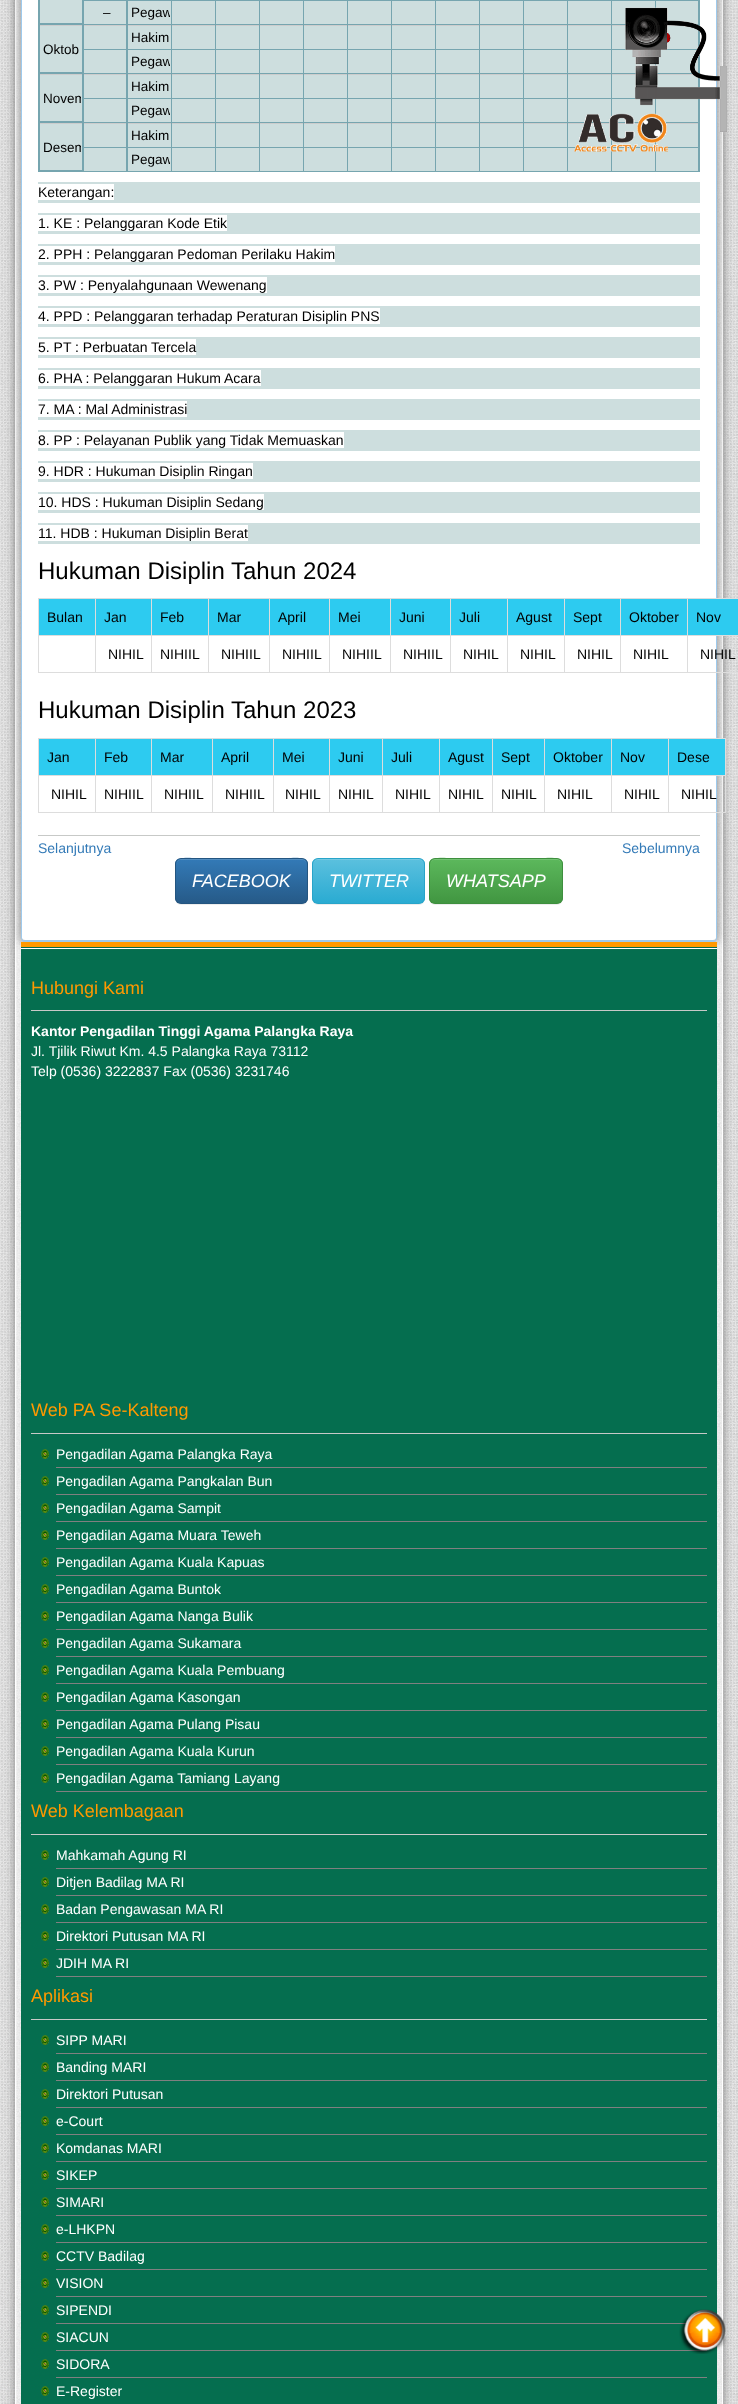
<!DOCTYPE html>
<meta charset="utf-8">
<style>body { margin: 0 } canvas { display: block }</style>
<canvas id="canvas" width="738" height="2404"></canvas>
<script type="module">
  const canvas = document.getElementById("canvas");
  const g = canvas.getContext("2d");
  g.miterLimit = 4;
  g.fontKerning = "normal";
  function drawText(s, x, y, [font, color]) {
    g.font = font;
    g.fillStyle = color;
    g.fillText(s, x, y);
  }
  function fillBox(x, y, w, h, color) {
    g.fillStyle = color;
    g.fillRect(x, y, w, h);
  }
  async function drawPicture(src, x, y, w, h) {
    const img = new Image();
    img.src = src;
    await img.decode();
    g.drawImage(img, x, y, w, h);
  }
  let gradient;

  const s1 = ["13.5px Liberation Sans", "#000000"];
  const s2 = ["14px Liberation Sans", "#000000"];
  const s3 = ["24px Liberation Sans", "#000000"];
  const s4 = ["14px Liberation Sans", "#337AB7"];
  const s5 = ["italic 18px Liberation Sans", "#FFFFFF"];
  const s6 = ["18px Liberation Sans", "#FF9900"];
  const s7 = ["bold 14px Liberation Sans", "#FFFFFF"];
  const s8 = ["14px Liberation Sans", "#FFFFFF"];

  fillBox(0, 0, 738, 2404, "#FFFFFF");
  await drawPicture("pic1.png", 0, 0, 738, 2404);
  g.fillStyle = "#808080";
  g.filter = "blur(5px)";
  g.beginPath();
  g.roundRect(15, -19, 708, 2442, 4);
  g.fill();
  g.filter = "none";
  await drawPicture("pic2.png", 16, 0, 706, 2404);
  g.strokeStyle = "#FFFFFF";
  g.strokeRect(15.5, -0.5, 707, 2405);
  g.filter = "blur(5px)";
  g.beginPath();
  g.roundRect(21, -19, 696, 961, 4);
  g.fill();
  g.filter = "none";
  g.fillStyle = "#FFFFFF";
  g.beginPath();
  g.moveTo(25, -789);
  g.lineTo(713, -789);
  g.bezierCurveTo(715, -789, 716, -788, 716, -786);
  g.lineTo(716, 938);
  g.bezierCurveTo(716, 939, 715, 940, 713, 940);
  g.lineTo(25, 940);
  g.bezierCurveTo(23, 940, 22, 939, 22, 938);
  g.lineTo(22, -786);
  g.bezierCurveTo(22, -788, 23, -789, 25, -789);
  g.closePath();
  g.fill();
  g.beginPath();
  g.roundRect(21.5, -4.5, 695, 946, 3.5);
  g.strokeStyle = "#9ECAED";
  g.stroke();
  fillBox(23, 940, 692, 1, "#9ECAED");
  fillBox(40, 0, 658, 24, "#CDDEDE");
  fillBox(611, 24, 15, 1, "#76A5AF");
  fillBox(611, 0, 1, 25, "#76A5AF");
  fillBox(567, 24, 45, 1, "#76A5AF");
  fillBox(567, 0, 1, 25, "#76A5AF");
  fillBox(523, 24, 45, 1, "#76A5AF");
  fillBox(523, 0, 1, 25, "#76A5AF");
  fillBox(479, 24, 45, 1, "#76A5AF");
  fillBox(479, 0, 1, 25, "#76A5AF");
  fillBox(435, 24, 45, 1, "#76A5AF");
  fillBox(435, 0, 1, 25, "#76A5AF");
  fillBox(391, 24, 45, 1, "#76A5AF");
  fillBox(391, 0, 1, 25, "#76A5AF");
  fillBox(347, 24, 45, 1, "#76A5AF");
  fillBox(347, 0, 1, 25, "#76A5AF");
  fillBox(303, 24, 45, 1, "#76A5AF");
  fillBox(303, 0, 1, 25, "#76A5AF");
  fillBox(259, 24, 45, 1, "#76A5AF");
  fillBox(259, 0, 1, 25, "#76A5AF");
  fillBox(215, 24, 45, 1, "#76A5AF");
  fillBox(215, 0, 1, 25, "#76A5AF");
  fillBox(171, 24, 45, 1, "#76A5AF");
  fillBox(171, 0, 1, 25, "#76A5AF");
  fillBox(655, 0, 1, 8, "#76A5AF");
  fillBox(83, 0, 617, 1, "#76A5AF");
  fillBox(83, 24, 89, 1, "#76A5AF");
  fillBox(82, 0, 2, 25, "#76A5AF");
  fillBox(38, 23, 46, 2, "#76A5AF");
  fillBox(38, 0, 2, 25, "#76A5AF");
  fillBox(126, 0, 2, 25, "#76A5AF");
  drawText("–", 103, 17, s1);
  g.save();
  g.beginPath();
  g.rect(128, 1, 42, 22);
  g.clip();
  drawText("Pegaw", 131, 17, s1);
  g.restore();
  fillBox(696, 24, 4, 1, "#76A5AF");
  fillBox(698, 0, 2, 25, "#76A5AF");
  fillBox(40, 25, 658, 48, "#CDDEDE");
  fillBox(39, 25, 587, 1, "#CCCCCC");
  fillBox(611, 73, 25, 1, "#76A5AF");
  fillBox(611, 49, 1, 25, "#76A5AF");
  fillBox(611, 49, 15, 1, "#76A5AF");
  fillBox(611, 25, 1, 25, "#76A5AF");
  fillBox(567, 73, 45, 1, "#76A5AF");
  fillBox(567, 49, 1, 25, "#76A5AF");
  fillBox(567, 49, 45, 1, "#76A5AF");
  fillBox(567, 25, 1, 25, "#76A5AF");
  fillBox(523, 73, 45, 1, "#76A5AF");
  fillBox(523, 49, 1, 25, "#76A5AF");
  fillBox(523, 49, 45, 1, "#76A5AF");
  fillBox(523, 25, 1, 25, "#76A5AF");
  fillBox(479, 73, 45, 1, "#76A5AF");
  fillBox(479, 49, 1, 25, "#76A5AF");
  fillBox(479, 49, 45, 1, "#76A5AF");
  fillBox(479, 25, 1, 25, "#76A5AF");
  fillBox(435, 73, 45, 1, "#76A5AF");
  fillBox(435, 49, 1, 25, "#76A5AF");
  fillBox(435, 49, 45, 1, "#76A5AF");
  fillBox(435, 25, 1, 25, "#76A5AF");
  fillBox(391, 73, 45, 1, "#76A5AF");
  fillBox(391, 49, 1, 25, "#76A5AF");
  fillBox(391, 49, 45, 1, "#76A5AF");
  fillBox(391, 25, 1, 25, "#76A5AF");
  fillBox(347, 73, 45, 1, "#76A5AF");
  fillBox(347, 49, 1, 25, "#76A5AF");
  fillBox(347, 49, 45, 1, "#76A5AF");
  fillBox(347, 25, 1, 25, "#76A5AF");
  fillBox(303, 73, 45, 1, "#76A5AF");
  fillBox(303, 49, 1, 25, "#76A5AF");
  fillBox(303, 49, 45, 1, "#76A5AF");
  fillBox(303, 25, 1, 25, "#76A5AF");
  fillBox(259, 73, 45, 1, "#76A5AF");
  fillBox(259, 49, 1, 25, "#76A5AF");
  fillBox(259, 49, 45, 1, "#76A5AF");
  fillBox(259, 25, 1, 25, "#76A5AF");
  fillBox(215, 73, 45, 1, "#76A5AF");
  fillBox(215, 49, 1, 25, "#76A5AF");
  fillBox(215, 49, 45, 1, "#76A5AF");
  fillBox(215, 25, 1, 25, "#76A5AF");
  fillBox(171, 73, 45, 1, "#76A5AF");
  fillBox(171, 49, 1, 25, "#76A5AF");
  fillBox(171, 49, 45, 1, "#76A5AF");
  fillBox(171, 25, 1, 25, "#76A5AF");
  fillBox(83, 49, 89, 1, "#76A5AF");
  drawText("Hakim", 131, 42, s1);
  fillBox(83, 73, 89, 1, "#76A5AF");
  fillBox(82, 25, 2, 49, "#76A5AF");
  fillBox(38, 72, 46, 2, "#76A5AF");
  fillBox(38, 25, 2, 49, "#76A5AF");
  drawText("Oktob", 43, 54, s1);
  fillBox(667, 49, 33, 1, "#76A5AF");
  fillBox(126, 25, 2, 49, "#76A5AF");
  g.save();
  g.beginPath();
  g.rect(128, 50, 42, 22);
  g.clip();
  drawText("Pegaw", 131, 66, s1);
  g.restore();
  fillBox(655, 73, 45, 1, "#76A5AF");
  fillBox(655, 64, 1, 10, "#76A5AF");
  fillBox(698, 25, 2, 49, "#76A5AF");
  fillBox(40, 75, 658, 47, "#CDDEDE");
  fillBox(39, 74, 597, 1, "#CCCCCC");
  fillBox(611, 122, 28, 1, "#76A5AF");
  fillBox(611, 98, 1, 25, "#76A5AF");
  fillBox(611, 98, 24, 1, "#76A5AF");
  fillBox(611, 74, 1, 25, "#76A5AF");
  fillBox(567, 122, 45, 1, "#76A5AF");
  fillBox(567, 98, 1, 25, "#76A5AF");
  fillBox(567, 98, 45, 1, "#76A5AF");
  fillBox(567, 74, 1, 25, "#76A5AF");
  fillBox(523, 122, 45, 1, "#76A5AF");
  fillBox(523, 98, 1, 25, "#76A5AF");
  fillBox(523, 98, 45, 1, "#76A5AF");
  fillBox(523, 74, 1, 25, "#76A5AF");
  fillBox(479, 122, 45, 1, "#76A5AF");
  fillBox(479, 98, 1, 25, "#76A5AF");
  fillBox(479, 98, 45, 1, "#76A5AF");
  fillBox(479, 74, 1, 25, "#76A5AF");
  fillBox(435, 122, 45, 1, "#76A5AF");
  fillBox(435, 98, 1, 25, "#76A5AF");
  fillBox(435, 98, 45, 1, "#76A5AF");
  fillBox(435, 74, 1, 25, "#76A5AF");
  fillBox(391, 122, 45, 1, "#76A5AF");
  fillBox(391, 98, 1, 25, "#76A5AF");
  fillBox(391, 98, 45, 1, "#76A5AF");
  fillBox(391, 74, 1, 25, "#76A5AF");
  fillBox(347, 122, 45, 1, "#76A5AF");
  fillBox(347, 98, 1, 25, "#76A5AF");
  fillBox(347, 98, 45, 1, "#76A5AF");
  fillBox(347, 74, 1, 25, "#76A5AF");
  fillBox(303, 122, 45, 1, "#76A5AF");
  fillBox(303, 98, 1, 25, "#76A5AF");
  fillBox(303, 98, 45, 1, "#76A5AF");
  fillBox(303, 74, 1, 25, "#76A5AF");
  fillBox(259, 122, 45, 1, "#76A5AF");
  fillBox(259, 98, 1, 25, "#76A5AF");
  fillBox(259, 98, 45, 1, "#76A5AF");
  fillBox(259, 74, 1, 25, "#76A5AF");
  fillBox(215, 122, 45, 1, "#76A5AF");
  fillBox(215, 98, 1, 25, "#76A5AF");
  fillBox(215, 98, 45, 1, "#76A5AF");
  fillBox(215, 74, 1, 25, "#76A5AF");
  fillBox(171, 122, 45, 1, "#76A5AF");
  fillBox(171, 98, 1, 25, "#76A5AF");
  fillBox(171, 98, 45, 1, "#76A5AF");
  fillBox(171, 74, 1, 25, "#76A5AF");
  fillBox(83, 98, 89, 1, "#76A5AF");
  drawText("Hakim", 131, 91, s1);
  fillBox(655, 74, 45, 1, "#CCCCCC");
  fillBox(698, 74, 2, 14, "#76A5AF");
  fillBox(83, 122, 89, 1, "#76A5AF");
  fillBox(82, 74, 2, 49, "#76A5AF");
  fillBox(38, 121, 46, 2, "#76A5AF");
  fillBox(38, 74, 2, 49, "#76A5AF");
  g.save();
  g.beginPath();
  g.rect(41, 76, 40, 44);
  g.clip();
  drawText("Novem", 43, 103, s1);
  g.restore();
  fillBox(126, 74, 2, 49, "#76A5AF");
  g.save();
  g.beginPath();
  g.rect(128, 99, 42, 22);
  g.clip();
  drawText("Pegaw", 131, 115, s1);
  g.restore();
  fillBox(655, 98, 1, 16, "#76A5AF");
  fillBox(655, 122, 45, 1, "#76A5AF");
  fillBox(698, 97, 2, 26, "#76A5AF");
  fillBox(40, 124, 658, 47, "#CDDEDE");
  fillBox(39, 123, 604, 1, "#CCCCCC");
  fillBox(655, 171, 45, 1, "#76A5AF");
  fillBox(655, 147, 1, 25, "#76A5AF");
  fillBox(655, 147, 45, 1, "#76A5AF");
  fillBox(655, 142, 1, 6, "#76A5AF");
  fillBox(611, 171, 45, 1, "#76A5AF");
  fillBox(611, 147, 1, 25, "#76A5AF");
  fillBox(611, 147, 45, 1, "#76A5AF");
  fillBox(611, 140, 1, 8, "#76A5AF");
  fillBox(567, 171, 45, 1, "#76A5AF");
  fillBox(567, 147, 1, 25, "#76A5AF");
  fillBox(567, 147, 45, 1, "#76A5AF");
  fillBox(567, 123, 1, 25, "#76A5AF");
  fillBox(523, 171, 45, 1, "#76A5AF");
  fillBox(523, 147, 1, 25, "#76A5AF");
  fillBox(523, 147, 45, 1, "#76A5AF");
  fillBox(523, 123, 1, 25, "#76A5AF");
  fillBox(479, 171, 45, 1, "#76A5AF");
  fillBox(479, 147, 1, 25, "#76A5AF");
  fillBox(479, 147, 45, 1, "#76A5AF");
  fillBox(479, 123, 1, 25, "#76A5AF");
  fillBox(435, 171, 45, 1, "#76A5AF");
  fillBox(435, 147, 1, 25, "#76A5AF");
  fillBox(435, 147, 45, 1, "#76A5AF");
  fillBox(435, 123, 1, 25, "#76A5AF");
  fillBox(391, 171, 45, 1, "#76A5AF");
  fillBox(391, 147, 1, 25, "#76A5AF");
  fillBox(391, 147, 45, 1, "#76A5AF");
  fillBox(391, 123, 1, 25, "#76A5AF");
  fillBox(347, 171, 45, 1, "#76A5AF");
  fillBox(347, 147, 1, 25, "#76A5AF");
  fillBox(347, 147, 45, 1, "#76A5AF");
  fillBox(347, 123, 1, 25, "#76A5AF");
  fillBox(303, 171, 45, 1, "#76A5AF");
  fillBox(303, 147, 1, 25, "#76A5AF");
  fillBox(303, 147, 45, 1, "#76A5AF");
  fillBox(303, 123, 1, 25, "#76A5AF");
  fillBox(259, 171, 45, 1, "#76A5AF");
  fillBox(259, 147, 1, 25, "#76A5AF");
  fillBox(259, 147, 45, 1, "#76A5AF");
  fillBox(259, 123, 1, 25, "#76A5AF");
  fillBox(215, 171, 45, 1, "#76A5AF");
  fillBox(215, 147, 1, 25, "#76A5AF");
  fillBox(215, 147, 45, 1, "#76A5AF");
  fillBox(215, 123, 1, 25, "#76A5AF");
  fillBox(171, 171, 45, 1, "#76A5AF");
  fillBox(171, 147, 1, 25, "#76A5AF");
  fillBox(171, 147, 45, 1, "#76A5AF");
  fillBox(171, 123, 1, 25, "#76A5AF");
  fillBox(83, 147, 89, 1, "#76A5AF");
  drawText("Hakim", 131, 140, s1);
  fillBox(655, 123, 45, 1, "#CCCCCC");
  fillBox(83, 171, 89, 1, "#76A5AF");
  fillBox(82, 123, 2, 49, "#76A5AF");
  fillBox(38, 170, 46, 2, "#76A5AF");
  fillBox(38, 123, 2, 49, "#76A5AF");
  g.save();
  g.beginPath();
  g.rect(41, 125, 40, 44);
  g.clip();
  drawText("Desem", 43, 152, s1);
  g.restore();
  fillBox(126, 123, 2, 49, "#76A5AF");
  g.save();
  g.beginPath();
  g.rect(128, 148, 42, 22);
  g.clip();
  drawText("Pegaw", 131, 164, s1);
  g.restore();
  fillBox(698, 123, 2, 49, "#76A5AF");
  fillBox(38, 182, 662, 21, "#CDDEDE");
  fillBox(38, 184, 76, 16, "#FFFFFF");
  drawText("Keterangan:", 38, 197, s2);
  fillBox(38, 213, 662, 21, "#CDDEDE");
  fillBox(38, 215, 189, 16, "#FFFFFF");
  drawText("1. KE : Pelanggaran Kode Etik", 38, 228, s2);
  fillBox(38, 244, 662, 21, "#CDDEDE");
  fillBox(38, 246, 297, 16, "#FFFFFF");
  drawText("2. PPH : Pelanggaran Pedoman Perilaku Hakim", 38, 259, s2);
  fillBox(38, 275, 662, 21, "#CDDEDE");
  fillBox(38, 277, 229, 16, "#FFFFFF");
  drawText("3. PW : Penyalahgunaan Wewenang", 38, 290, s2);
  fillBox(38, 306, 662, 21, "#CDDEDE");
  fillBox(38, 308, 342, 16, "#FFFFFF");
  drawText("4. PPD : Pelanggaran terhadap Peraturan Disiplin PNS", 38, 321, s2);
  fillBox(38, 337, 662, 21, "#CDDEDE");
  fillBox(38, 339, 158, 16, "#FFFFFF");
  drawText("5. PT : Perbuatan Tercela", 38, 352, s2);
  fillBox(38, 368, 662, 21, "#CDDEDE");
  fillBox(38, 370, 223, 16, "#FFFFFF");
  drawText("6. PHA : Pelanggaran Hukum Acara", 38, 383, s2);
  fillBox(38, 399, 662, 21, "#CDDEDE");
  fillBox(38, 401, 149, 16, "#FFFFFF");
  drawText("7. MA : Mal Administrasi", 38, 414, s2);
  fillBox(38, 430, 662, 21, "#CDDEDE");
  fillBox(38, 432, 306, 16, "#FFFFFF");
  drawText("8. PP : Pelayanan Publik yang Tidak Memuaskan", 38, 445, s2);
  fillBox(38, 461, 662, 21, "#CDDEDE");
  fillBox(38, 463, 215, 16, "#FFFFFF");
  drawText("9. HDR : Hukuman Disiplin Ringan", 38, 476, s2);
  fillBox(38, 492, 662, 21, "#CDDEDE");
  fillBox(38, 494, 226, 16, "#FFFFFF");
  drawText("10. HDS : Hukuman Disiplin Sedang", 38, 507, s2);
  fillBox(38, 523, 662, 21, "#CDDEDE");
  fillBox(38, 525, 210, 16, "#FFFFFF");
  drawText("11. HDB : Hukuman Disiplin Berat", 38, 538, s2);
  drawText("Hukuman Disiplin Tahun 2024", 38, 579, s3);
  fillBox(39, 599, 56, 36, "#2DCBF0");
  fillBox(687, 598, 51, 1, "#DDDDDD");
  fillBox(687, 635, 51, 1, "#DDDDDD");
  fillBox(687, 672, 51, 1, "#DDDDDD");
  fillBox(687, 635, 1, 38, "#DDDDDD");
  fillBox(620, 635, 68, 1, "#DDDDDD");
  fillBox(687, 598, 1, 38, "#DDDDDD");
  fillBox(620, 598, 68, 1, "#DDDDDD");
  fillBox(620, 672, 68, 1, "#DDDDDD");
  fillBox(620, 635, 1, 38, "#DDDDDD");
  fillBox(564, 635, 57, 1, "#DDDDDD");
  fillBox(620, 598, 1, 38, "#DDDDDD");
  fillBox(564, 598, 57, 1, "#DDDDDD");
  fillBox(564, 672, 57, 1, "#DDDDDD");
  fillBox(564, 635, 1, 38, "#DDDDDD");
  fillBox(507, 635, 58, 1, "#DDDDDD");
  fillBox(564, 598, 1, 38, "#DDDDDD");
  fillBox(507, 598, 58, 1, "#DDDDDD");
  fillBox(507, 672, 58, 1, "#DDDDDD");
  fillBox(507, 635, 1, 38, "#DDDDDD");
  fillBox(450, 635, 58, 1, "#DDDDDD");
  fillBox(507, 598, 1, 38, "#DDDDDD");
  fillBox(450, 598, 58, 1, "#DDDDDD");
  fillBox(450, 672, 58, 1, "#DDDDDD");
  fillBox(450, 635, 1, 38, "#DDDDDD");
  fillBox(390, 635, 61, 1, "#DDDDDD");
  fillBox(450, 598, 1, 38, "#DDDDDD");
  fillBox(390, 598, 61, 1, "#DDDDDD");
  fillBox(390, 672, 61, 1, "#DDDDDD");
  fillBox(390, 635, 1, 38, "#DDDDDD");
  fillBox(329, 635, 62, 1, "#DDDDDD");
  fillBox(390, 598, 1, 38, "#DDDDDD");
  fillBox(329, 598, 62, 1, "#DDDDDD");
  fillBox(329, 672, 62, 1, "#DDDDDD");
  fillBox(329, 635, 1, 38, "#DDDDDD");
  fillBox(269, 635, 61, 1, "#DDDDDD");
  fillBox(329, 598, 1, 38, "#DDDDDD");
  fillBox(269, 598, 61, 1, "#DDDDDD");
  fillBox(269, 672, 61, 1, "#DDDDDD");
  fillBox(269, 635, 1, 38, "#DDDDDD");
  fillBox(208, 635, 62, 1, "#DDDDDD");
  fillBox(269, 598, 1, 38, "#DDDDDD");
  fillBox(208, 598, 62, 1, "#DDDDDD");
  fillBox(208, 672, 62, 1, "#DDDDDD");
  fillBox(208, 635, 1, 38, "#DDDDDD");
  fillBox(151, 635, 58, 1, "#DDDDDD");
  fillBox(208, 598, 1, 38, "#DDDDDD");
  fillBox(151, 598, 58, 1, "#DDDDDD");
  fillBox(151, 672, 58, 1, "#DDDDDD");
  fillBox(151, 635, 1, 38, "#DDDDDD");
  fillBox(95, 635, 57, 1, "#DDDDDD");
  fillBox(151, 598, 1, 38, "#DDDDDD");
  fillBox(95, 598, 57, 1, "#DDDDDD");
  fillBox(95, 672, 57, 1, "#DDDDDD");
  fillBox(95, 635, 1, 38, "#DDDDDD");
  fillBox(38, 635, 58, 1, "#DDDDDD");
  fillBox(95, 598, 1, 38, "#DDDDDD");
  fillBox(38, 598, 58, 1, "#DDDDDD");
  fillBox(38, 672, 58, 1, "#DDDDDD");
  fillBox(38, 635, 1, 38, "#DDDDDD");
  fillBox(38, 598, 1, 38, "#DDDDDD");
  drawText("Bulan", 47, 622, s2);
  fillBox(96, 599, 55, 36, "#2DCBF0");
  drawText("Jan", 104, 622, s2);
  fillBox(152, 599, 56, 36, "#2DCBF0");
  drawText("Feb", 160, 622, s2);
  fillBox(209, 599, 60, 36, "#2DCBF0");
  drawText("Mar", 217, 622, s2);
  fillBox(270, 599, 59, 36, "#2DCBF0");
  drawText("April", 278, 622, s2);
  fillBox(330, 599, 60, 36, "#2DCBF0");
  drawText("Mei", 338, 622, s2);
  fillBox(391, 599, 59, 36, "#2DCBF0");
  drawText("Juni", 399, 622, s2);
  fillBox(451, 599, 56, 36, "#2DCBF0");
  drawText("Juli", 459, 622, s2);
  fillBox(508, 599, 56, 36, "#2DCBF0");
  drawText("Agust", 516, 622, s2);
  fillBox(565, 599, 55, 36, "#2DCBF0");
  drawText("Sept", 573, 622, s2);
  fillBox(621, 599, 66, 36, "#2DCBF0");
  drawText("Oktober", 629, 622, s2);
  fillBox(688, 599, 50, 36, "#2DCBF0");
  drawText("Nov", 696, 622, s2);
  drawText("NIHIL", 108, 659, s2);
  drawText("NIHIIL", 160, 659, s2);
  drawText("NIHIIL", 221, 659, s2);
  drawText("NIHIIL", 282, 659, s2);
  drawText("NIHIIL", 342, 659, s2);
  drawText("NIHIIL", 403, 659, s2);
  drawText("NIHIL", 463, 659, s2);
  drawText("NIHIL", 520, 659, s2);
  drawText("NIHIL", 577, 659, s2);
  drawText("NIHIL", 633, 659, s2);
  drawText("NIHIL", 700, 659, s2);
  drawText("Hukuman Disiplin Tahun 2023", 38, 718, s3);
  fillBox(39, 739, 56, 36, "#2DCBF0");
  fillBox(668, 738, 58, 1, "#DDDDDD");
  fillBox(668, 775, 58, 1, "#DDDDDD");
  fillBox(725, 775, 1, 38, "#DDDDDD");
  fillBox(668, 812, 58, 1, "#DDDDDD");
  fillBox(668, 775, 1, 38, "#DDDDDD");
  fillBox(611, 775, 58, 1, "#DDDDDD");
  fillBox(668, 738, 1, 38, "#DDDDDD");
  fillBox(611, 738, 58, 1, "#DDDDDD");
  fillBox(611, 812, 58, 1, "#DDDDDD");
  fillBox(611, 775, 1, 38, "#DDDDDD");
  fillBox(544, 775, 68, 1, "#DDDDDD");
  fillBox(611, 738, 1, 38, "#DDDDDD");
  fillBox(544, 738, 68, 1, "#DDDDDD");
  fillBox(544, 812, 68, 1, "#DDDDDD");
  fillBox(544, 775, 1, 38, "#DDDDDD");
  fillBox(492, 775, 53, 1, "#DDDDDD");
  fillBox(544, 738, 1, 38, "#DDDDDD");
  fillBox(492, 738, 53, 1, "#DDDDDD");
  fillBox(492, 812, 53, 1, "#DDDDDD");
  fillBox(492, 775, 1, 38, "#DDDDDD");
  fillBox(439, 775, 54, 1, "#DDDDDD");
  fillBox(492, 738, 1, 38, "#DDDDDD");
  fillBox(439, 738, 54, 1, "#DDDDDD");
  fillBox(439, 812, 54, 1, "#DDDDDD");
  fillBox(439, 775, 1, 38, "#DDDDDD");
  fillBox(382, 775, 58, 1, "#DDDDDD");
  fillBox(439, 738, 1, 38, "#DDDDDD");
  fillBox(382, 738, 58, 1, "#DDDDDD");
  fillBox(382, 812, 58, 1, "#DDDDDD");
  fillBox(382, 775, 1, 38, "#DDDDDD");
  fillBox(329, 775, 54, 1, "#DDDDDD");
  fillBox(382, 738, 1, 38, "#DDDDDD");
  fillBox(329, 738, 54, 1, "#DDDDDD");
  fillBox(329, 812, 54, 1, "#DDDDDD");
  fillBox(329, 775, 1, 38, "#DDDDDD");
  fillBox(273, 775, 57, 1, "#DDDDDD");
  fillBox(329, 738, 1, 38, "#DDDDDD");
  fillBox(273, 738, 57, 1, "#DDDDDD");
  fillBox(273, 812, 57, 1, "#DDDDDD");
  fillBox(273, 775, 1, 38, "#DDDDDD");
  fillBox(212, 775, 62, 1, "#DDDDDD");
  fillBox(273, 738, 1, 38, "#DDDDDD");
  fillBox(212, 738, 62, 1, "#DDDDDD");
  fillBox(212, 812, 62, 1, "#DDDDDD");
  fillBox(212, 775, 1, 38, "#DDDDDD");
  fillBox(151, 775, 62, 1, "#DDDDDD");
  fillBox(212, 738, 1, 38, "#DDDDDD");
  fillBox(151, 738, 62, 1, "#DDDDDD");
  fillBox(151, 812, 62, 1, "#DDDDDD");
  fillBox(151, 775, 1, 38, "#DDDDDD");
  fillBox(95, 775, 57, 1, "#DDDDDD");
  fillBox(151, 738, 1, 38, "#DDDDDD");
  fillBox(95, 738, 57, 1, "#DDDDDD");
  fillBox(95, 812, 57, 1, "#DDDDDD");
  fillBox(95, 775, 1, 38, "#DDDDDD");
  fillBox(38, 775, 58, 1, "#DDDDDD");
  fillBox(95, 738, 1, 38, "#DDDDDD");
  fillBox(38, 738, 58, 1, "#DDDDDD");
  fillBox(38, 812, 58, 1, "#DDDDDD");
  fillBox(38, 775, 1, 38, "#DDDDDD");
  fillBox(38, 738, 1, 38, "#DDDDDD");
  drawText("Jan", 47, 762, s2);
  fillBox(96, 739, 55, 36, "#2DCBF0");
  drawText("Feb", 104, 762, s2);
  fillBox(152, 739, 60, 36, "#2DCBF0");
  drawText("Mar", 160, 762, s2);
  fillBox(213, 739, 60, 36, "#2DCBF0");
  drawText("April", 221, 762, s2);
  fillBox(274, 739, 55, 36, "#2DCBF0");
  drawText("Mei", 282, 762, s2);
  fillBox(330, 739, 52, 36, "#2DCBF0");
  drawText("Juni", 338, 762, s2);
  fillBox(383, 739, 56, 36, "#2DCBF0");
  drawText("Juli", 391, 762, s2);
  fillBox(440, 739, 52, 36, "#2DCBF0");
  drawText("Agust", 448, 762, s2);
  fillBox(493, 739, 51, 36, "#2DCBF0");
  drawText("Sept", 501, 762, s2);
  fillBox(545, 739, 66, 36, "#2DCBF0");
  drawText("Oktober", 553, 762, s2);
  fillBox(612, 739, 56, 36, "#2DCBF0");
  drawText("Nov", 620, 762, s2);
  fillBox(669, 739, 56, 36, "#2DCBF0");
  fillBox(725, 738, 1, 38, "#DDDDDD");
  drawText("Dese", 677, 762, s2);
  drawText("NIHIL", 51, 799, s2);
  drawText("NIHIIL", 104, 799, s2);
  drawText("NIHIIL", 164, 799, s2);
  drawText("NIHIIL", 225, 799, s2);
  drawText("NIHIL", 285, 799, s2);
  drawText("NIHIL", 338, 799, s2);
  drawText("NIHIL", 395, 799, s2);
  drawText("NIHIL", 448, 799, s2);
  drawText("NIHIL", 501, 799, s2);
  drawText("NIHIL", 557, 799, s2);
  drawText("NIHIL", 624, 799, s2);
  drawText("NIHIL", 681, 799, s2);
  fillBox(38, 835, 662, 1, "#C7C9C7");
  drawText("Selanjutnya", 38, 853, s4);
  drawText("Sebelumnya", 622, 853, s4);
  g.fillStyle = "rgba(0, 0, 0, 0.07)";
  g.filter = "blur(0.5px)";
  g.beginPath();
  g.roundRect(175, 859, 133, 46, 6);
  g.fill();
  g.filter = "none";
  g.save();
  g.beginPath();
  g.roundRect(175, 858, 133, 46, 6);
  g.clip();
  gradient = g.createLinearGradient(242, 859, 242, 903);
  gradient.addColorStop(0, "#337AB7");
  gradient.addColorStop(1, "#265A88");
  g.fillStyle = gradient;
  g.fillRect(175, 859, 133, 44);
  g.restore();
  g.fillStyle = "#528EC1";
  g.beginPath();
  g.moveTo(181, 860);
  g.lineTo(302, 860);
  g.bezierCurveTo(305, 860, 307, 862, 307, 865);
  g.bezierCurveTo(307, 854, 286, 859, 282, 859);
  g.lineTo(201, 859);
  g.bezierCurveTo(197, 859, 176, 854, 176, 865);
  g.bezierCurveTo(176, 862, 178, 860, 181, 860);
  g.closePath();
  g.fill();
  g.beginPath();
  g.roundRect(175.5, 858.5, 132, 45, 5.5);
  g.strokeStyle = "#245580";
  g.stroke();
  drawText("FACEBOOK", 192, 887, s5);
  g.fillStyle = "rgba(0, 0, 0, 0.07)";
  g.filter = "blur(0.5px)";
  g.beginPath();
  g.roundRect(312, 859, 113, 46, 6);
  g.fill();
  g.filter = "none";
  g.save();
  g.beginPath();
  g.roundRect(312, 858, 113, 46, 6);
  g.clip();
  gradient = g.createLinearGradient(369, 859, 369, 903);
  gradient.addColorStop(0, "#5BC0DE");
  gradient.addColorStop(1, "#2AABD2");
  g.fillStyle = gradient;
  g.fillRect(312, 859, 113, 44);
  g.restore();
  g.fillStyle = "#73C9E3";
  g.beginPath();
  g.moveTo(318, 860);
  g.lineTo(419, 860);
  g.bezierCurveTo(422, 860, 424, 862, 424, 865);
  g.bezierCurveTo(424, 855, 407, 859, 402, 859);
  g.lineTo(335, 859);
  g.bezierCurveTo(330, 859, 313, 855, 313, 865);
  g.bezierCurveTo(313, 862, 315, 860, 318, 860);
  g.closePath();
  g.fill();
  g.beginPath();
  g.roundRect(312.5, 858.5, 112, 45, 5.5);
  g.strokeStyle = "#28A4C9";
  g.stroke();
  drawText("TWITTER", 329, 887, s5);
  g.fillStyle = "rgba(0, 0, 0, 0.07)";
  g.filter = "blur(0.5px)";
  g.beginPath();
  g.roundRect(429, 859, 134, 46, 6);
  g.fill();
  g.filter = "none";
  g.save();
  g.beginPath();
  g.roundRect(429, 858, 134, 46, 6);
  g.clip();
  gradient = g.createLinearGradient(496, 859, 496, 903);
  gradient.addColorStop(0, "#5CB85C");
  gradient.addColorStop(1, "#419641");
  g.fillStyle = gradient;
  g.fillRect(429, 859, 134, 44);
  g.restore();
  g.fillStyle = "#74C374";
  g.beginPath();
  g.moveTo(435, 860);
  g.lineTo(557, 860);
  g.bezierCurveTo(560, 860, 562, 862, 562, 865);
  g.bezierCurveTo(562, 854, 540, 859, 537, 859);
  g.lineTo(455, 859);
  g.bezierCurveTo(452, 859, 430, 854, 430, 865);
  g.bezierCurveTo(430, 862, 432, 860, 435, 860);
  g.closePath();
  g.fill();
  g.beginPath();
  g.roundRect(429.5, 858.5, 133, 45, 5.5);
  g.strokeStyle = "#3E8F3E";
  g.stroke();
  drawText("WHATSAPP", 446, 887, s5);
  fillBox(21, 942, 696, 5, "#FF9900");
  fillBox(21, 947, 696, 1, "#056E4F");
  fillBox(21, 948, 696, 1, "#FFFFFF");
  fillBox(21, 949, 696, 1455, "#056E4F");
  drawText("Hubungi Kami", 31, 994, s6);
  fillBox(31, 1010, 676, 1, "#C7C9C7");
  drawText("Kantor Pengadilan Tinggi Agama Palangka Raya", 31, 1036, s7);
  drawText("Jl. Tjilik Riwut Km. 4.5 Palangka Raya 73112", 31, 1056, s8);
  drawText("Telp (0536) 3222837 Fax (0536) 3231746", 31, 1076, s8);
  drawText("Web PA Se-Kalteng", 31, 1416, s6);
  fillBox(31, 1433, 676, 1, "#C7C9C7");
  fillBox(56, 1467, 651, 1, "#808080");
  await drawPicture("pic3.png", 41, 1449, 8, 10);
  drawText("Pengadilan Agama Palangka Raya", 56, 1459, s8);
  fillBox(56, 1494, 651, 1, "#808080");
  await drawPicture("pic3.png", 41, 1476, 8, 10);
  drawText("Pengadilan Agama Pangkalan Bun", 56, 1486, s8);
  fillBox(56, 1521, 651, 1, "#808080");
  await drawPicture("pic3.png", 41, 1503, 8, 10);
  drawText("Pengadilan Agama Sampit", 56, 1513, s8);
  fillBox(56, 1548, 651, 1, "#808080");
  await drawPicture("pic3.png", 41, 1530, 8, 10);
  drawText("Pengadilan Agama Muara Teweh", 56, 1540, s8);
  fillBox(56, 1575, 651, 1, "#808080");
  await drawPicture("pic3.png", 41, 1557, 8, 10);
  drawText("Pengadilan Agama Kuala Kapuas", 56, 1567, s8);
  fillBox(56, 1602, 651, 1, "#808080");
  await drawPicture("pic3.png", 41, 1584, 8, 10);
  drawText("Pengadilan Agama Buntok", 56, 1594, s8);
  fillBox(56, 1629, 651, 1, "#808080");
  await drawPicture("pic3.png", 41, 1611, 8, 10);
  drawText("Pengadilan Agama Nanga Bulik", 56, 1621, s8);
  fillBox(56, 1656, 651, 1, "#808080");
  await drawPicture("pic3.png", 41, 1638, 8, 10);
  drawText("Pengadilan Agama Sukamara", 56, 1648, s8);
  fillBox(56, 1683, 651, 1, "#808080");
  await drawPicture("pic3.png", 41, 1665, 8, 10);
  drawText("Pengadilan Agama Kuala Pembuang", 56, 1675, s8);
  fillBox(56, 1710, 651, 1, "#808080");
  await drawPicture("pic3.png", 41, 1692, 8, 10);
  drawText("Pengadilan Agama Kasongan", 56, 1702, s8);
  fillBox(56, 1737, 651, 1, "#808080");
  await drawPicture("pic3.png", 41, 1719, 8, 10);
  drawText("Pengadilan Agama Pulang Pisau", 56, 1729, s8);
  fillBox(56, 1764, 651, 1, "#808080");
  await drawPicture("pic3.png", 41, 1746, 8, 10);
  drawText("Pengadilan Agama Kuala Kurun", 56, 1756, s8);
  fillBox(56, 1791, 651, 1, "#808080");
  await drawPicture("pic3.png", 41, 1773, 8, 10);
  drawText("Pengadilan Agama Tamiang Layang", 56, 1783, s8);
  drawText("Web Kelembagaan", 31, 1817, s6);
  fillBox(31, 1834, 676, 1, "#C7C9C7");
  fillBox(56, 1868, 651, 1, "#808080");
  await drawPicture("pic3.png", 41, 1850, 8, 10);
  drawText("Mahkamah Agung RI", 56, 1860, s8);
  fillBox(56, 1895, 651, 1, "#808080");
  await drawPicture("pic3.png", 41, 1877, 8, 10);
  drawText("Ditjen Badilag MA RI", 56, 1887, s8);
  fillBox(56, 1922, 651, 1, "#808080");
  await drawPicture("pic3.png", 41, 1904, 8, 10);
  drawText("Badan Pengawasan MA RI", 56, 1914, s8);
  fillBox(56, 1949, 651, 1, "#808080");
  await drawPicture("pic3.png", 41, 1931, 8, 10);
  drawText("Direktori Putusan MA RI", 56, 1941, s8);
  fillBox(56, 1976, 651, 1, "#808080");
  await drawPicture("pic3.png", 41, 1958, 8, 10);
  drawText("JDIH MA RI", 56, 1968, s8);
  drawText("Aplikasi", 31, 2002, s6);
  fillBox(31, 2019, 676, 1, "#C7C9C7");
  fillBox(56, 2053, 651, 1, "#808080");
  await drawPicture("pic3.png", 41, 2035, 8, 10);
  drawText("SIPP MARI", 56, 2045, s8);
  fillBox(56, 2080, 651, 1, "#808080");
  await drawPicture("pic3.png", 41, 2062, 8, 10);
  drawText("Banding MARI", 56, 2072, s8);
  fillBox(56, 2107, 651, 1, "#808080");
  await drawPicture("pic3.png", 41, 2089, 8, 10);
  drawText("Direktori Putusan", 56, 2099, s8);
  fillBox(56, 2134, 651, 1, "#808080");
  await drawPicture("pic3.png", 41, 2116, 8, 10);
  drawText("e-Court", 56, 2126, s8);
  fillBox(56, 2161, 651, 1, "#808080");
  await drawPicture("pic3.png", 41, 2143, 8, 10);
  drawText("Komdanas MARI", 56, 2153, s8);
  fillBox(56, 2188, 651, 1, "#808080");
  await drawPicture("pic3.png", 41, 2170, 8, 10);
  drawText("SIKEP", 56, 2180, s8);
  fillBox(56, 2215, 651, 1, "#808080");
  await drawPicture("pic3.png", 41, 2197, 8, 10);
  drawText("SIMARI", 56, 2207, s8);
  fillBox(56, 2242, 651, 1, "#808080");
  await drawPicture("pic3.png", 41, 2224, 8, 10);
  drawText("e-LHKPN", 56, 2234, s8);
  fillBox(56, 2269, 651, 1, "#808080");
  await drawPicture("pic3.png", 41, 2251, 8, 10);
  drawText("CCTV Badilag", 56, 2261, s8);
  fillBox(56, 2296, 651, 1, "#808080");
  await drawPicture("pic3.png", 41, 2278, 8, 10);
  drawText("VISION", 56, 2288, s8);
  fillBox(56, 2323, 631, 1, "#808080");
  await drawPicture("pic3.png", 41, 2305, 8, 10);
  drawText("SIPENDI", 56, 2315, s8);
  fillBox(56, 2350, 651, 1, "#808080");
  await drawPicture("pic3.png", 41, 2332, 8, 10);
  drawText("SIACUN", 56, 2342, s8);
  fillBox(56, 2377, 651, 1, "#808080");
  await drawPicture("pic3.png", 41, 2359, 8, 10);
  drawText("SIDORA", 56, 2369, s8);
  await drawPicture("pic3.png", 41, 2386, 8, 10);
  drawText("E-Register", 56, 2396, s8);
  await drawPicture("pic4.png", 574, 7, 154, 145);
  await drawPicture("pic5.png", 679, 2309, 48, 45);
</script>
